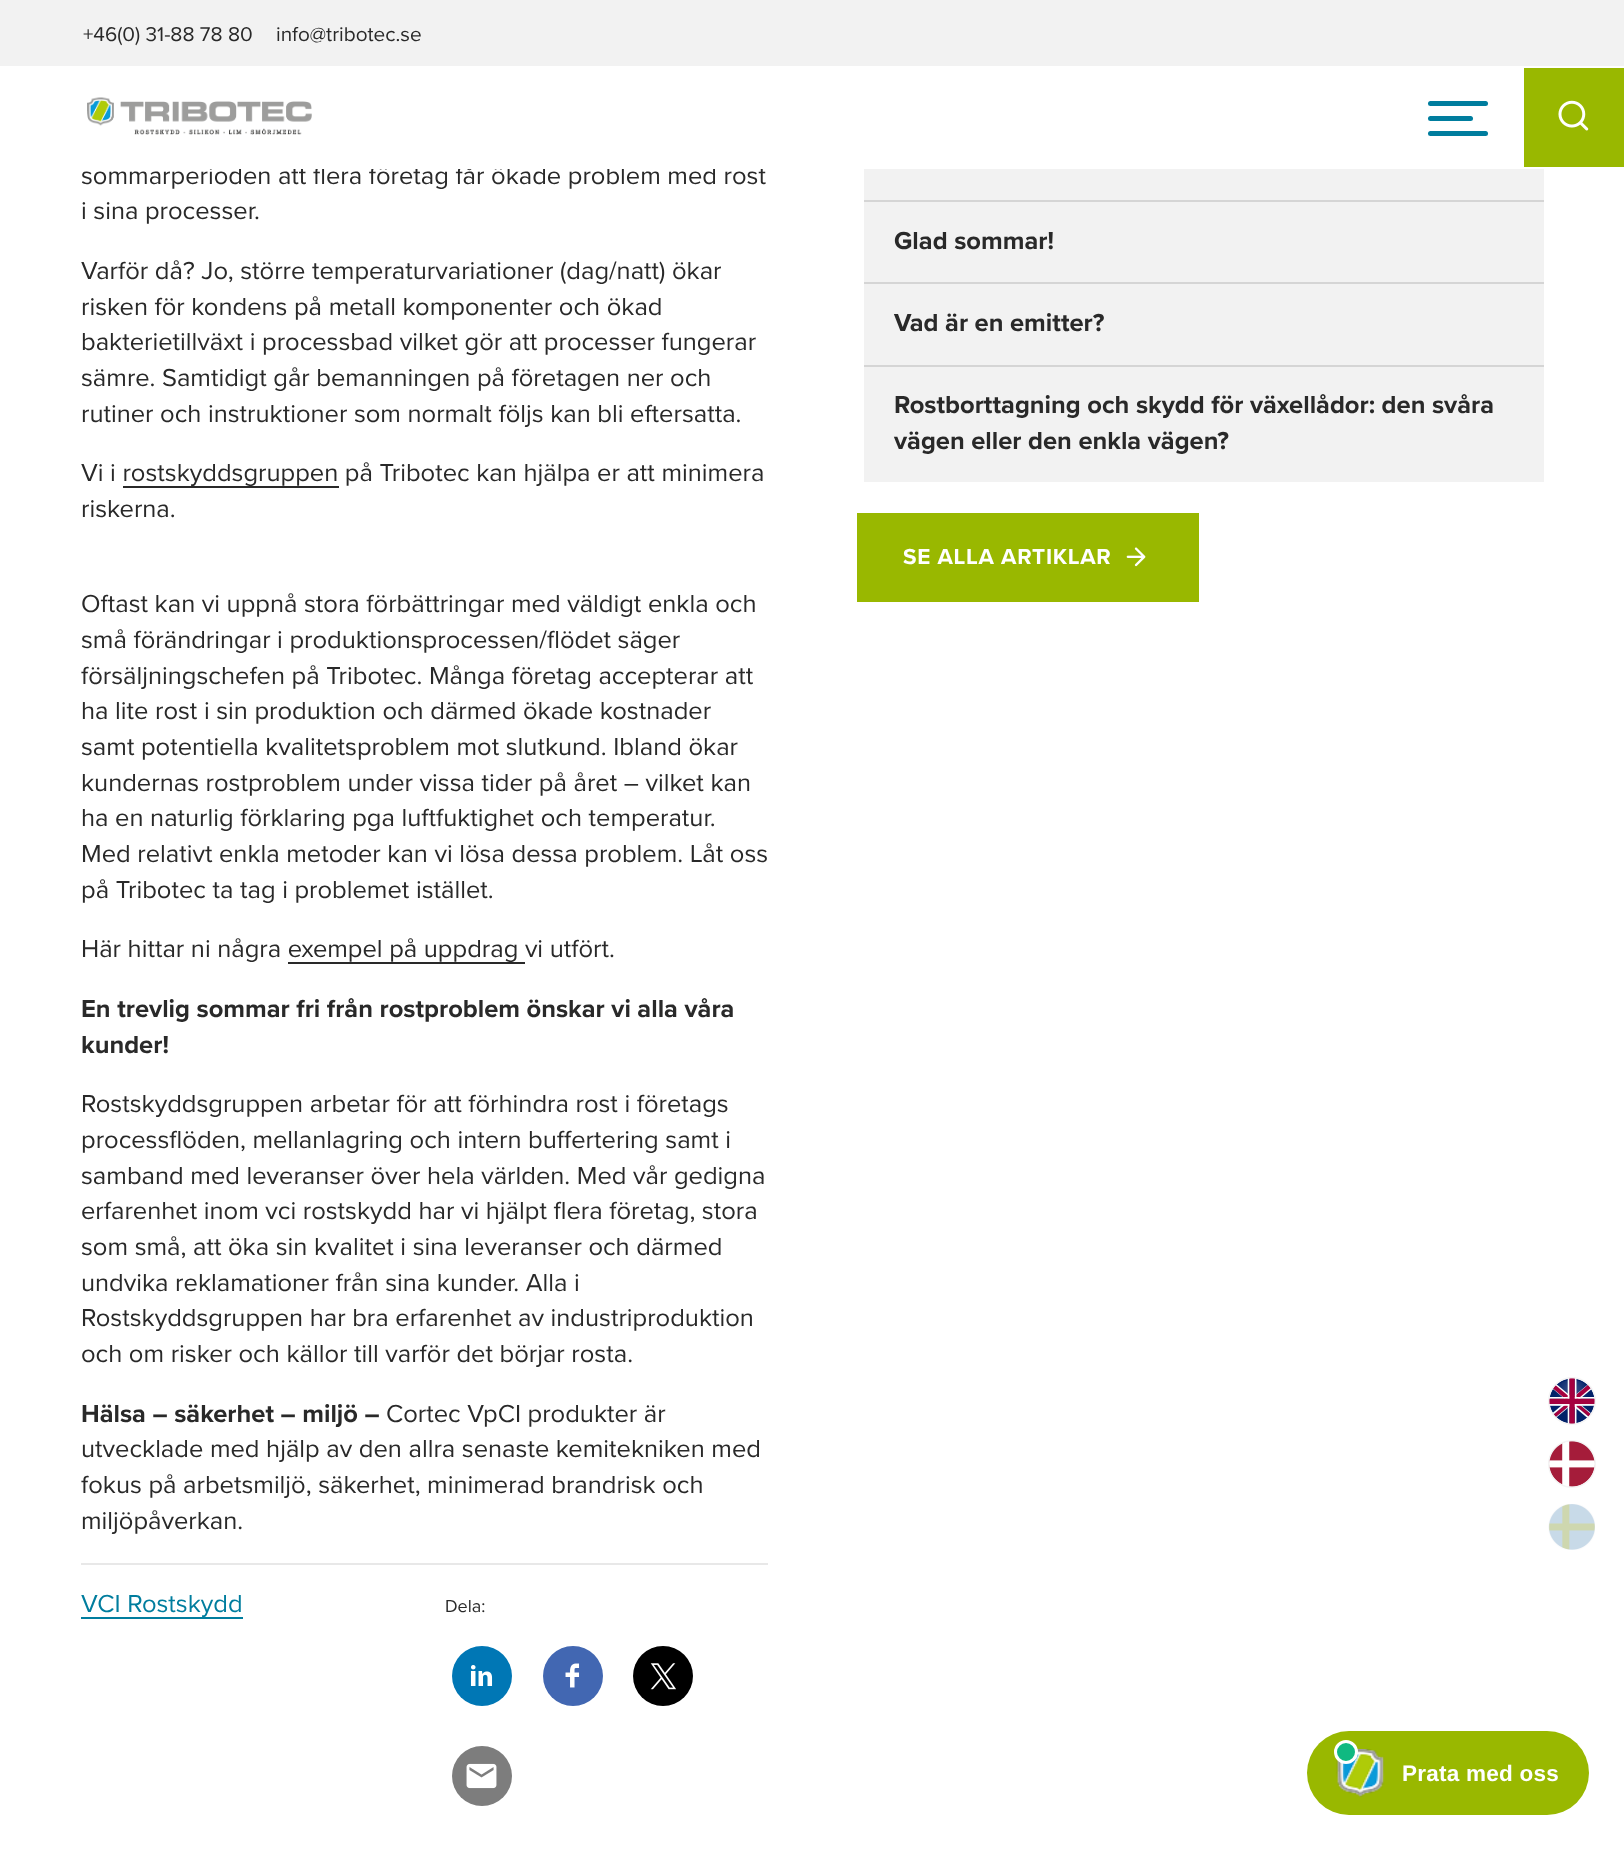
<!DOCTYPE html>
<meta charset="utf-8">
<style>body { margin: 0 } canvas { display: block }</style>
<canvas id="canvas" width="1624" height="1850"></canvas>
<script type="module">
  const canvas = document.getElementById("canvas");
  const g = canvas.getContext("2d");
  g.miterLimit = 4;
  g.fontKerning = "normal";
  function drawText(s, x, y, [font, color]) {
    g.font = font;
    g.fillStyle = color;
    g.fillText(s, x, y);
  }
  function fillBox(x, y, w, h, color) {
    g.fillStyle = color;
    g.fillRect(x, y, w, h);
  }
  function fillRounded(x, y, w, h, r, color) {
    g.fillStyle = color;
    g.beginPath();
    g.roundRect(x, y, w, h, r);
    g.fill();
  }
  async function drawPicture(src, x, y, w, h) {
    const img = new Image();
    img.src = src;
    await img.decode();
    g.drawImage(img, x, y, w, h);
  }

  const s1 = ["25.5px Proxima Nova", "#292929"];
  const s2 = ["20.75px Proxima Nova", "#292929"];
  const s3 = ["bold 25.5px Proxima Nova", "#292929"];
  const s4 = ["25.5px Proxima Nova", "#007D9E"];
  const s5 = ["18px Proxima Nova", "#292929"];
  const s6 = ["bold 22.5px Proxima Nova", "#FFFFFF"];
  const s7 = ["bold 22.5px Liberation Sans", "#FFFFFF"];

  fillBox(0, 0, 1624, 1850, "#FFFFFF");
  drawText("sommarperioden att flera företag får ökade problem med rost", 81, 184, s1);
  fillBox(318, 165, 154, 2, "#FFFFFF");
  fillBox(0, 0, 1624, 66, "#F2F2F2");
  drawText("+46(0) 31-88 78 80", 83, 41, s2);
  drawText("info@tribotec.se", 276, 41, s2);
  fillBox(209, 167, 554, 2, "#FFFFFF");
  await drawPicture("pic1.png", 87, 97, 225, 38);
  fillRounded(1428, 116, 45, 5, 2.5, "#007D9E");
  fillRounded(1428, 101, 60, 5, 2.5, "#007D9E");
  fillRounded(1428, 131, 60, 5, 2.5, "#007D9E");
  fillBox(1524, 68, 100, 99, "#99B800");
  await drawPicture("pic2.png", 1558, 100, 31, 31);
  drawText("i sina processer.", 81, 219, s1);
  drawText("Varför då? Jo, större temperaturvariationer (dag/natt) ökar", 81, 279, s1);
  drawText("risken för kondens på metall komponenter och ökad", 81, 315, s1);
  drawText("bakterietillväxt i processbad vilket gör att processer fungerar", 81, 350, s1);
  drawText("sämre. Samtidigt går bemanningen på företagen ner och", 81, 386, s1);
  drawText("rutiner och instruktioner som normalt följs kan bli eftersatta.", 81, 422, s1);
  drawText("Vi i rostskyddsgruppen på Tribotec kan hjälpa er att minimera", 81, 481, s1);
  fillBox(123, 486, 216, 2, "#292929");
  drawText("riskerna.", 81, 517, s1);
  drawText("Oftast kan vi uppnå stora förbättringar med väldigt enkla och", 81, 612, s1);
  drawText("små förändringar i produktionsprocessen/flödet säger", 81, 648, s1);
  drawText("försäljningschefen på Tribotec. Många företag accepterar att", 81, 684, s1);
  drawText("ha lite rost i sin produktion och därmed ökade kostnader", 81, 719, s1);
  drawText("samt potentiella kvalitetsproblem mot slutkund. Ibland ökar", 81, 755, s1);
  drawText("kundernas rostproblem under vissa tider på året – vilket kan", 81, 791, s1);
  drawText("ha en naturlig förklaring pga luftfuktighet och temperatur.", 81, 826, s1);
  drawText("Med relativt enkla metoder kan vi lösa dessa problem. Låt oss", 81, 862, s1);
  drawText("på Tribotec ta tag i problemet istället.", 81, 898, s1);
  drawText("Här hittar ni några exempel på uppdrag vi utfört.", 81, 957, s1);
  fillBox(288, 962, 237, 2, "#292929");
  drawText("En trevlig sommar fri från rostproblem önskar vi alla våra", 81, 1017, s3);
  drawText("kunder!", 81, 1053, s3);
  drawText("Rostskyddsgruppen arbetar för att förhindra rost i företags", 81, 1112, s1);
  drawText("processflöden, mellanlagring och intern buffertering samt i", 81, 1148, s1);
  drawText("samband med leveranser över hela världen. Med vår gedigna", 81, 1184, s1);
  drawText("erfarenhet inom vci rostskydd har vi hjälpt flera företag, stora", 81, 1219, s1);
  drawText("som små, att öka sin kvalitet i sina leveranser och därmed", 81, 1255, s1);
  drawText("undvika reklamationer från sina kunder. Alla i", 81, 1291, s1);
  drawText("Rostskyddsgruppen har bra erfarenhet av industriproduktion", 81, 1326, s1);
  drawText("och om risker och källor till varför det börjar rosta.", 81, 1362, s1);
  drawText("Hälsa – säkerhet – miljö –", 81, 1422, s3);
  drawText("Cortec VpCI produkter är", 386, 1422, s1);
  drawText("utvecklade med hjälp av den allra senaste kemitekniken med", 81, 1457, s1);
  drawText("fokus på arbetsmiljö, säkerhet, minimerad brandrisk och", 81, 1493, s1);
  drawText("miljöpåverkan.", 81, 1529, s1);
  fillBox(81, 1563, 687, 2, "#E8E8E8");
  drawText("VCI Rostskydd", 81, 1612, s4);
  fillBox(81, 1617, 162, 2, "#007D9E");
  drawText("Dela:", 445, 1612, s5);
  g.fillStyle = "#0077B5";
  g.beginPath();
  g.arc(482, 1676, 30, 0, Math.PI * 2);
  g.fill();
  await drawPicture("pic3.png", 470, 1665, 23, 21);
  g.fillStyle = "#4267B2";
  g.beginPath();
  g.arc(573, 1676, 30, 0, Math.PI * 2);
  g.fill();
  await drawPicture("pic4.png", 565, 1663, 15, 25);
  g.fillStyle = "#000000";
  g.beginPath();
  g.arc(663, 1676, 30, 0, Math.PI * 2);
  g.fill();
  await drawPicture("pic5.png", 650, 1663, 26, 27);
  g.fillStyle = "#7D7D7D";
  g.beginPath();
  g.arc(482, 1776, 30, 0, Math.PI * 2);
  g.fill();
  await drawPicture("pic6.png", 466, 1763, 31, 26);
  fillBox(864, 169, 680, 31, "#F2F2F2");
  fillBox(864, 202, 680, 80, "#F2F2F2");
  fillBox(864, 200, 680, 2, "#D5D5D5");
  drawText("Glad sommar!", 894, 249, s3);
  fillBox(864, 284, 680, 81, "#F2F2F2");
  fillBox(864, 282, 680, 2, "#D5D5D5");
  drawText("Vad är en emitter?", 894, 331, s3);
  fillBox(864, 367, 680, 115, "#F2F2F2");
  fillBox(864, 365, 680, 2, "#D5D5D5");
  drawText("Rostborttagning och skydd för växellådor: den svåra", 894, 413, s3);
  drawText("vägen eller den enkla vägen?", 894, 449, s3);
  fillBox(857, 513, 342, 89, "#99B800");
  g.letterSpacing = "0.7px";
  drawText("SE ALLA ARTIKLAR", 903, 564, s6);
  await drawPicture("pic7.png", 1126, 547, 20, 20);
  await drawPicture("pic8.png", 1548, 1377, 48, 48);
  await drawPicture("pic9.png", 1548, 1440, 48, 48);
  await drawPicture("pic10.png", 1548, 1504, 47, 46);
  fillRounded(1307, 1731, 282, 84, 42, "#99B800");
  await drawPicture("pic11.png", 1336, 1749, 49, 48);
  g.fillStyle = "#10B981";
  g.beginPath();
  g.arc(1346, 1752, 10.5, 0, Math.PI * 2);
  g.fill();
  g.strokeStyle = "#FFFFFF";
  g.lineWidth = 3;
  g.stroke();
  g.letterSpacing = "0.25px";
  drawText("Prata med oss", 1402, 1781, s7);
</script>
